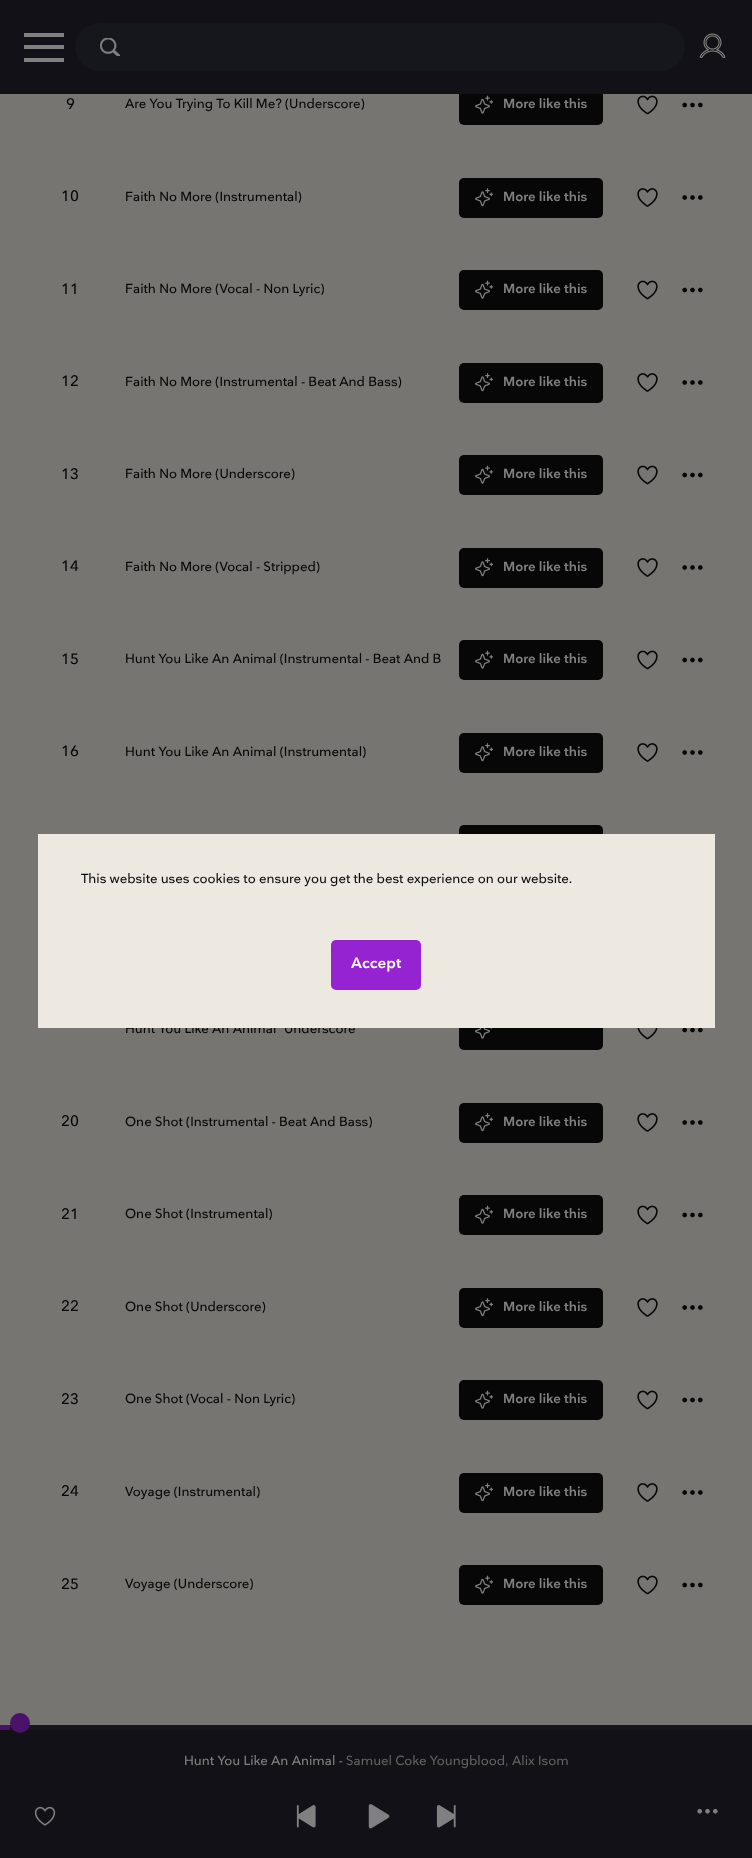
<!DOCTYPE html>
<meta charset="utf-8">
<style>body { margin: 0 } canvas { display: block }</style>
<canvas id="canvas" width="752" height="1858"></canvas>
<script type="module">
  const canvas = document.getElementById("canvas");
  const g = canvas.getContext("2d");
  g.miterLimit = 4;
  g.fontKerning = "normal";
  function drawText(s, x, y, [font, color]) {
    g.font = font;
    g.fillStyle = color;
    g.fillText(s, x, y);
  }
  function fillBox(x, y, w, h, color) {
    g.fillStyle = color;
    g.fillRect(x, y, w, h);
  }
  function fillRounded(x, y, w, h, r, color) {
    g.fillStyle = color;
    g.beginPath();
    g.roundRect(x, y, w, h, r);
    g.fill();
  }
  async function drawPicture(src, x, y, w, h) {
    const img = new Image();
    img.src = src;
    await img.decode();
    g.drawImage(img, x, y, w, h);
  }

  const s1 = ["500 15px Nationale", "#070707"];
  const s2 = ["500 13.1px Nationale", "#070707"];
  const s3 = ["600 13.1px Nationale", "#808080"];
  const s4 = ["500 13.1px Nationale", "#0D0D0D"];
  const s5 = ["600 15px Nationale", "#FFFFFF"];
  const s6 = ["500 13.1px Nationale", "#808080"];
  const s7 = ["500 13.1px Nationale", "#616161"];
  const s8 = ["500 13.1px Nationale", "#49494C"];

  fillBox(0, 0, 752, 1858, "#777571");
  fillRounded(459, 85, 144, 40, 5, "#070707");
  fillBox(0, 0, 752, 94, "#111117");
  fillBox(24, 33, 40, 4, "#808080");
  fillBox(24, 45, 40, 4, "#808080");
  fillBox(24, 58, 40, 4, "#808080");
  fillRounded(75, 23, 610, 48, 24, "#16161D");
  await drawPicture("pic1.png", 100, 38, 20, 18);
  await drawPicture("pic2.png", 699, 33, 27, 26);
  drawText("9", 66, 109, s1);
  drawText("Are You Trying To Kill Me? (Underscore)", 125, 108, s2);
  await drawPicture("pic3.png", 475, 95, 19, 19);
  drawText("More like this", 503, 108, s3);
  await drawPicture("pic4.png", 637, 95, 21, 20);
  await drawPicture("pic5.png", 682, 102, 21, 6);
  drawText("10", 61, 201, s1);
  drawText("Faith No More (Instrumental)", 125, 201, s2);
  fillRounded(459, 178, 144, 40, 5, "#070707");
  await drawPicture("pic6.png", 475, 188, 19, 19);
  drawText("More like this", 503, 201, s3);
  await drawPicture("pic7.png", 637, 188, 21, 19);
  await drawPicture("pic8.png", 682, 195, 21, 5);
  drawText("11", 61, 294, s1);
  drawText("Faith No More (Vocal - Non Lyric)", 125, 293, s2);
  fillRounded(459, 270, 144, 40, 5, "#070707");
  await drawPicture("pic3.png", 475, 280, 19, 19);
  drawText("More like this", 503, 293, s3);
  await drawPicture("pic4.png", 637, 280, 21, 20);
  await drawPicture("pic5.png", 682, 287, 21, 6);
  drawText("12", 61, 386, s1);
  drawText("Faith No More (Instrumental - Beat And Bass)", 125, 386, s2);
  fillRounded(459, 363, 144, 40, 5, "#070707");
  await drawPicture("pic6.png", 475, 373, 19, 19);
  drawText("More like this", 503, 386, s3);
  await drawPicture("pic7.png", 637, 373, 21, 19);
  await drawPicture("pic8.png", 682, 380, 21, 5);
  drawText("13", 61, 479, s1);
  drawText("Faith No More (Underscore)", 125, 478, s2);
  fillRounded(459, 455, 144, 40, 5, "#070707");
  await drawPicture("pic3.png", 475, 465, 19, 19);
  drawText("More like this", 503, 478, s3);
  await drawPicture("pic4.png", 637, 465, 21, 20);
  await drawPicture("pic5.png", 682, 472, 21, 6);
  drawText("14", 61, 571, s1);
  drawText("Faith No More (Vocal - Stripped)", 125, 571, s2);
  fillRounded(459, 548, 144, 40, 5, "#070707");
  await drawPicture("pic6.png", 475, 558, 19, 19);
  drawText("More like this", 503, 571, s3);
  await drawPicture("pic7.png", 637, 558, 21, 19);
  await drawPicture("pic8.png", 682, 565, 21, 5);
  drawText("15", 61, 664, s1);
  drawText("Hunt You Like An Animal (Instrumental - Beat And B", 125, 663, s2);
  fillRounded(459, 640, 144, 40, 5, "#070707");
  await drawPicture("pic3.png", 475, 650, 19, 19);
  drawText("More like this", 503, 663, s3);
  await drawPicture("pic4.png", 637, 650, 21, 20);
  await drawPicture("pic5.png", 682, 657, 21, 6);
  drawText("16", 61, 756, s1);
  drawText("Hunt You Like An Animal (Instrumental)", 125, 756, s2);
  fillRounded(459, 733, 144, 40, 5, "#070707");
  await drawPicture("pic6.png", 475, 743, 19, 19);
  drawText("More like this", 503, 756, s3);
  await drawPicture("pic7.png", 637, 743, 21, 19);
  await drawPicture("pic8.png", 682, 750, 21, 5);
  fillRounded(459, 825, 144, 40, 5, "#070707");
  drawText("Hunt You Like An Animal", 125, 1033, s2);
  drawText("Underscore", 284, 1033, s2);
  fillRounded(459, 1010, 144, 40, 5, "#070707");
  await drawPicture("pic9.png", 475, 1028, 17, 11);
  await drawPicture("pic10.png", 637, 1028, 21, 12);
  await drawPicture("pic11.png", 682, 1028, 21, 5);
  drawText("20", 61, 1126, s1);
  drawText("One Shot (Instrumental - Beat And Bass)", 125, 1126, s2);
  fillRounded(459, 1103, 144, 40, 5, "#070707");
  await drawPicture("pic6.png", 475, 1113, 19, 19);
  drawText("More like this", 503, 1126, s3);
  await drawPicture("pic7.png", 637, 1113, 21, 19);
  await drawPicture("pic8.png", 682, 1120, 21, 5);
  drawText("21", 61, 1219, s1);
  drawText("One Shot (Instrumental)", 125, 1218, s2);
  fillRounded(459, 1195, 144, 40, 5, "#070707");
  await drawPicture("pic3.png", 475, 1205, 19, 19);
  drawText("More like this", 503, 1218, s3);
  await drawPicture("pic4.png", 637, 1205, 21, 20);
  await drawPicture("pic5.png", 682, 1212, 21, 6);
  drawText("22", 61, 1311, s1);
  drawText("One Shot (Underscore)", 125, 1311, s2);
  fillRounded(459, 1288, 144, 40, 5, "#070707");
  await drawPicture("pic6.png", 475, 1298, 19, 19);
  drawText("More like this", 503, 1311, s3);
  await drawPicture("pic7.png", 637, 1298, 21, 19);
  await drawPicture("pic8.png", 682, 1305, 21, 5);
  drawText("23", 61, 1404, s1);
  drawText("One Shot (Vocal - Non Lyric)", 125, 1403, s2);
  fillRounded(459, 1380, 144, 40, 5, "#070707");
  await drawPicture("pic3.png", 475, 1390, 19, 19);
  drawText("More like this", 503, 1403, s3);
  await drawPicture("pic4.png", 637, 1390, 21, 20);
  await drawPicture("pic5.png", 682, 1397, 21, 6);
  drawText("24", 61, 1496, s1);
  drawText("Voyage (Instrumental)", 125, 1496, s2);
  fillRounded(459, 1473, 144, 40, 5, "#070707");
  await drawPicture("pic6.png", 475, 1483, 19, 19);
  drawText("More like this", 503, 1496, s3);
  await drawPicture("pic7.png", 637, 1483, 21, 19);
  await drawPicture("pic8.png", 682, 1490, 21, 5);
  drawText("25", 61, 1589, s1);
  drawText("Voyage (Underscore)", 125, 1588, s2);
  fillRounded(459, 1565, 144, 40, 5, "#070707");
  await drawPicture("pic3.png", 475, 1575, 19, 19);
  drawText("More like this", 503, 1588, s3);
  await drawPicture("pic4.png", 637, 1575, 21, 20);
  await drawPicture("pic5.png", 682, 1582, 21, 6);
  fillBox(38, 834, 677, 194, "#EDE9E1");
  drawText("This website uses cookies to ensure you get the best experience on our website.", 81, 883, s4);
  fillRounded(331, 940, 90, 50, 5, "#9623D2");
  drawText("Accept", 351, 968, s5);
  fillBox(0, 1730, 752, 128, "#111117");
  fillBox(10, 1725, 742, 5, "#16161D");
  g.fillStyle = "#4B1269";
  g.beginPath();
  g.arc(20, 1723, 10, 0, Math.PI * 2);
  g.fill();
  fillBox(0, 1725, 10, 5, "#4B1269");
  drawText("Hunt You Like An Animal -", 184, 1765, s6);
  drawText("Samuel Coke Youngblood", 346, 1765, s7);
  drawText(",", 505, 1765, s8);
  drawText("Alix Isom", 512, 1765, s7);
  await drawPicture("pic12.png", 34, 1806, 22, 20);
  await drawPicture("pic13.png", 296, 1805, 20, 23);
  await drawPicture("pic14.png", 368, 1804, 22, 25);
  await drawPicture("pic15.png", 436, 1805, 20, 23);
  await drawPicture("pic16.png", 697, 1808, 21, 6);
</script>
